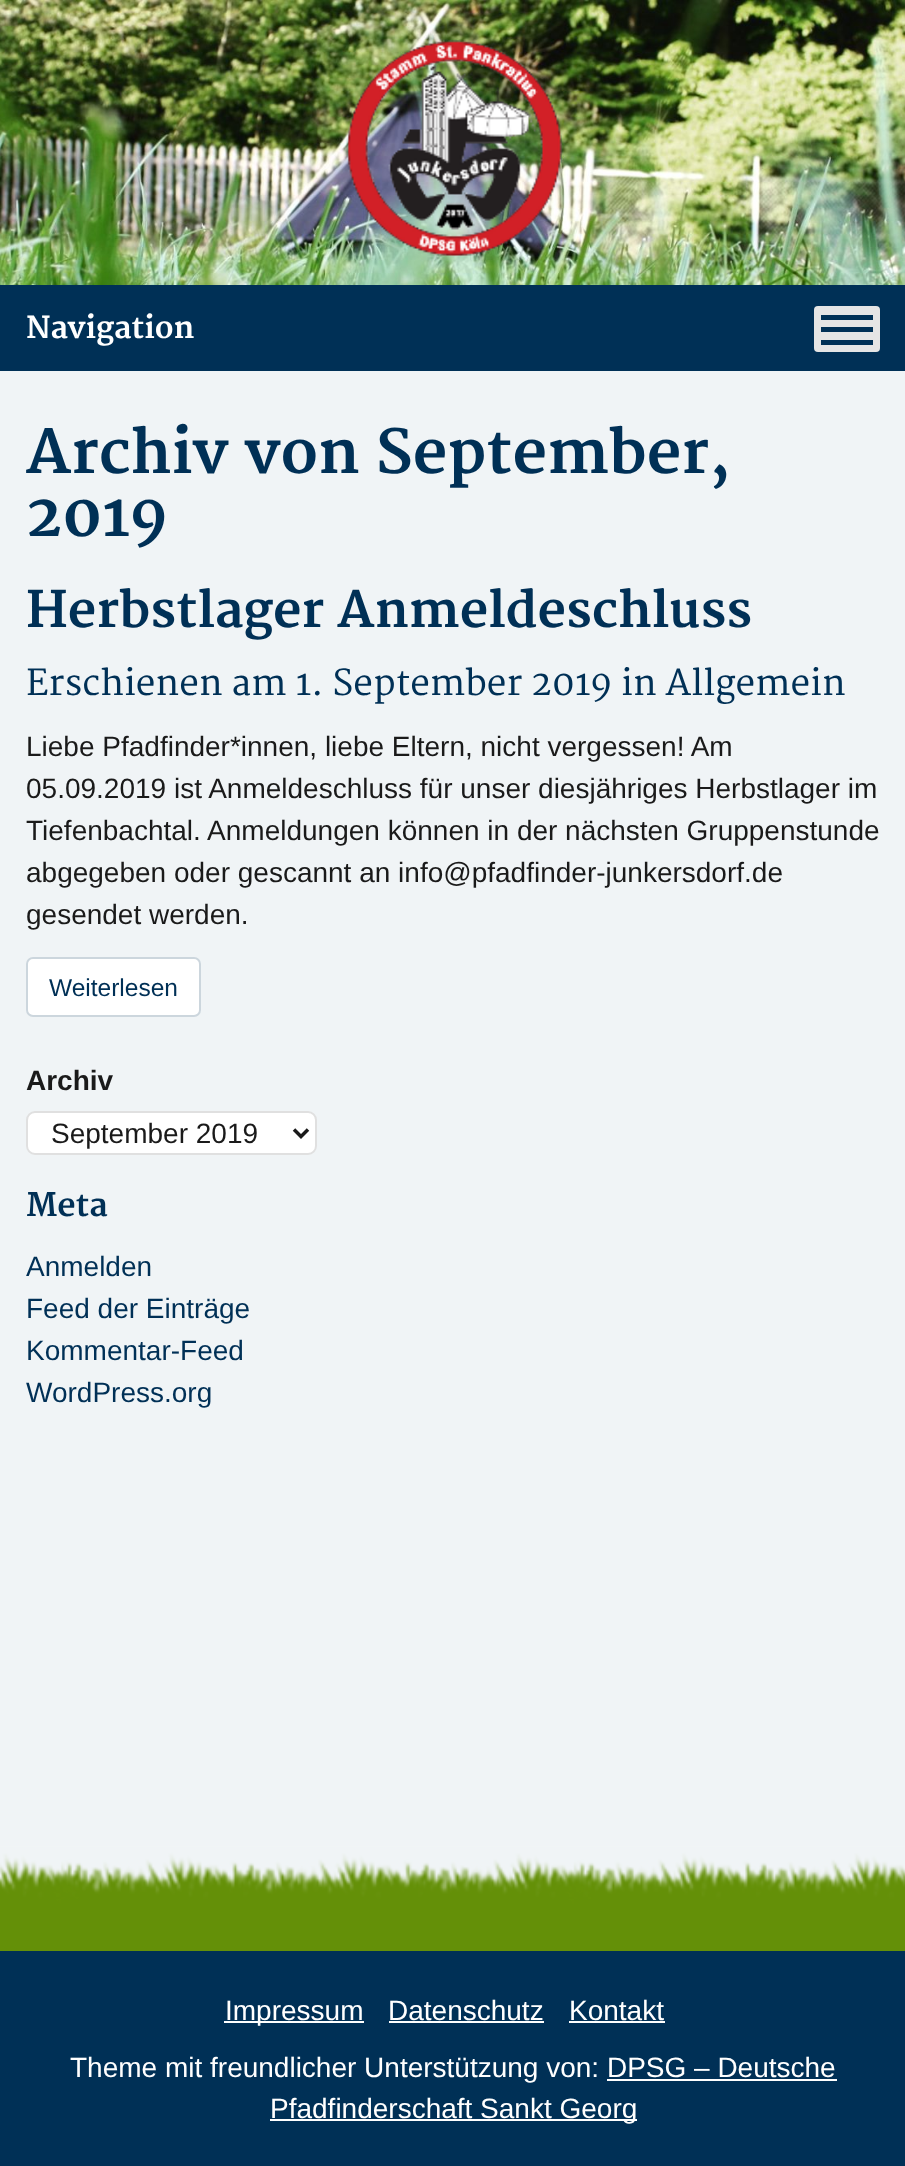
<!DOCTYPE html>
<meta charset="utf-8">
<style>body { margin: 0 } canvas { display: block }</style>
<canvas id="canvas" width="905" height="2166"></canvas>
<script type="module">
  const canvas = document.getElementById("canvas");
  const g = canvas.getContext("2d");
  g.miterLimit = 4;
  g.fontKerning = "normal";
  function drawText(s, x, y, [font, color]) {
    g.font = font;
    g.fillStyle = color;
    g.fillText(s, x, y);
  }
  function fillBox(x, y, w, h, color) {
    g.fillStyle = color;
    g.fillRect(x, y, w, h);
  }
  function fillRounded(x, y, w, h, r, color) {
    g.fillStyle = color;
    g.beginPath();
    g.roundRect(x, y, w, h, r);
    g.fill();
  }
  async function drawPicture(src, x, y, w, h) {
    const img = new Image();
    img.src = src;
    await img.decode();
    g.drawImage(img, x, y, w, h);
  }

  const s1 = ["bold 29.75px Merriweather", "#FFFFFF"];
  const s2 = ["bold 59.5px Merriweather", "#003056"];
  const s3 = ["bold 49px Merriweather", "#003056"];
  const s4 = ["35px Merriweather", "#003056"];
  const s5 = ["28px Liberation Sans", "#1A1A1A"];
  const s6 = ["24.5px Liberation Sans", "#003056"];
  const s7 = ["bold 28px Liberation Sans", "#1A1A1A"];
  const s8 = ["bold 31.5px Merriweather", "#003056"];
  const s9 = ["28px Liberation Sans", "#003056"];
  const s10 = ["28px Liberation Sans", "#FFFFFF"];

  fillBox(0, 0, 905, 2166, "#F0F4F6");
  await drawPicture("pic1.png", 0, 0, 905, 285);
  await drawPicture("pic2.png", 346, 40, 216, 217);
  fillBox(0, 285, 905, 86, "#003056");
  drawText("Navigation", 26, 338, s1);
  fillRounded(814, 306, 66, 46, 4, "#E5E5E5");
  fillBox(821, 315, 52, 5, "#003056");
  fillBox(821, 327, 52, 5, "#003056");
  fillBox(821, 340, 52, 5, "#003056");
  drawText("Archiv von September,", 26, 473, s2);
  drawText("2019", 26, 536, s2);
  drawText("Herbstlager Anmeldeschluss", 26, 627, s3);
  drawText("Erschienen am 1. September 2019 in Allgemein", 26, 695, s4);
  drawText("Liebe Pfadfinder*innen, liebe Eltern, nicht vergessen! Am", 26, 756, s5);
  drawText("05.09.2019 ist Anmeldeschluss für unser diesjähriges Herbstlager im", 26, 798, s5);
  drawText("Tiefenbachtal. Anmeldungen können in der nächsten Gruppenstunde", 26, 840, s5);
  drawText("abgegeben oder gescannt an info@pfadfinder-junkersdorf.de", 26, 882, s5);
  drawText("gesendet werden.", 26, 924, s5);
  g.fillStyle = "#FFFFFF";
  g.beginPath();
  g.roundRect(27, 958, 173, 58, 6);
  g.fill();
  g.strokeStyle = "#CCD6DD";
  g.lineWidth = 2;
  g.stroke();
  drawText("Weiterlesen", 49, 996, s6);
  drawText("Archiv", 26, 1090, s7);
  g.fillStyle = "#FFFFFF";
  g.beginPath();
  g.roundRect(27, 1112, 289, 42, 8);
  g.fill();
  g.strokeStyle = "#E0E0E0";
  g.stroke();
  g.beginPath();
  g.moveTo(294, 1129.5);
  g.lineTo(301, 1136.5);
  g.lineTo(308, 1129.5);
  g.strokeStyle = "#1A1A1A";
  g.lineWidth = 3.5;
  g.stroke();
  drawText("September 2019", 51, 1143, s5);
  drawText("Meta", 26, 1216, s8);
  drawText("Anmelden", 26, 1276, s9);
  drawText("Feed der Einträge", 26, 1318, s9);
  drawText("Kommentar-Feed", 26, 1360, s9);
  drawText("WordPress.org", 26, 1402, s9);
  await drawPicture("pic3.png", 0, 1846, 905, 105);
  fillBox(0, 1951, 905, 215, "#003056");
  fillBox(224, 2021, 140, 2, "#FFFFFF");
  drawText("Impressum", 225, 2020, s10);
  drawText("Datenschutz", 388, 2020, s10);
  fillBox(389, 2021, 155, 2, "#FFFFFF");
  drawText("Kontakt", 569, 2020, s10);
  fillBox(569, 2021, 96, 2, "#FFFFFF");
  drawText("Theme mit freundlicher Unterstützung von: DPSG – Deutsche", 70, 2077, s10);
  fillBox(270, 2119, 367, 2, "#FFFFFF");
  drawText("Pfadfinderschaft Sankt Georg", 270, 2118, s10);
  fillBox(607, 2079, 230, 2, "#FFFFFF");
</script>
